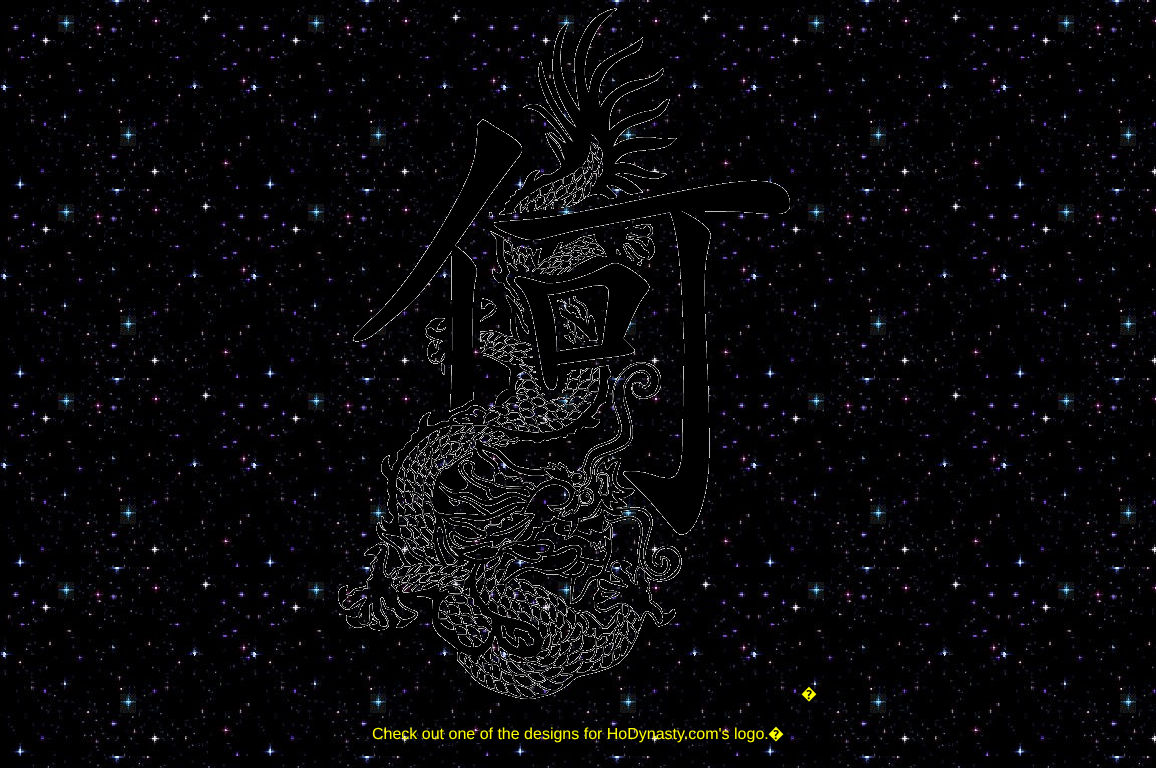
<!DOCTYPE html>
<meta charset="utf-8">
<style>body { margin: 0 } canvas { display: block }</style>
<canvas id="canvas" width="1156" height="768"></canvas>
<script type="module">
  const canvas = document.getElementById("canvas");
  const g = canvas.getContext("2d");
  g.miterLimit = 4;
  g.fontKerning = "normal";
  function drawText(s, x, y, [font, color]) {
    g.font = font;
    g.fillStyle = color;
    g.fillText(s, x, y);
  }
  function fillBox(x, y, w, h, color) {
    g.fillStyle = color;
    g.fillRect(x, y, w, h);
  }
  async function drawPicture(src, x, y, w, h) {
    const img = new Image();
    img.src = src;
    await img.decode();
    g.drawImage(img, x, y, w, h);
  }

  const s1 = ["16px Noto Sans", "#FFFF00"];
  const s2 = ["16px Liberation Sans", "#FFFF00"];

  fillBox(0, 0, 1156, 768, "#FFFFFF");
  await drawPicture("pic1.png", 0, 0, 1156, 768);
  await drawPicture("pic2.png", 338, 8, 452, 691);
  drawText("�", 801, 699, s1);
  drawText("Check out one of the designs for HoDynasty.com's logo.", 372, 739, s2);
  drawText("�", 768, 739, s1);
</script>
